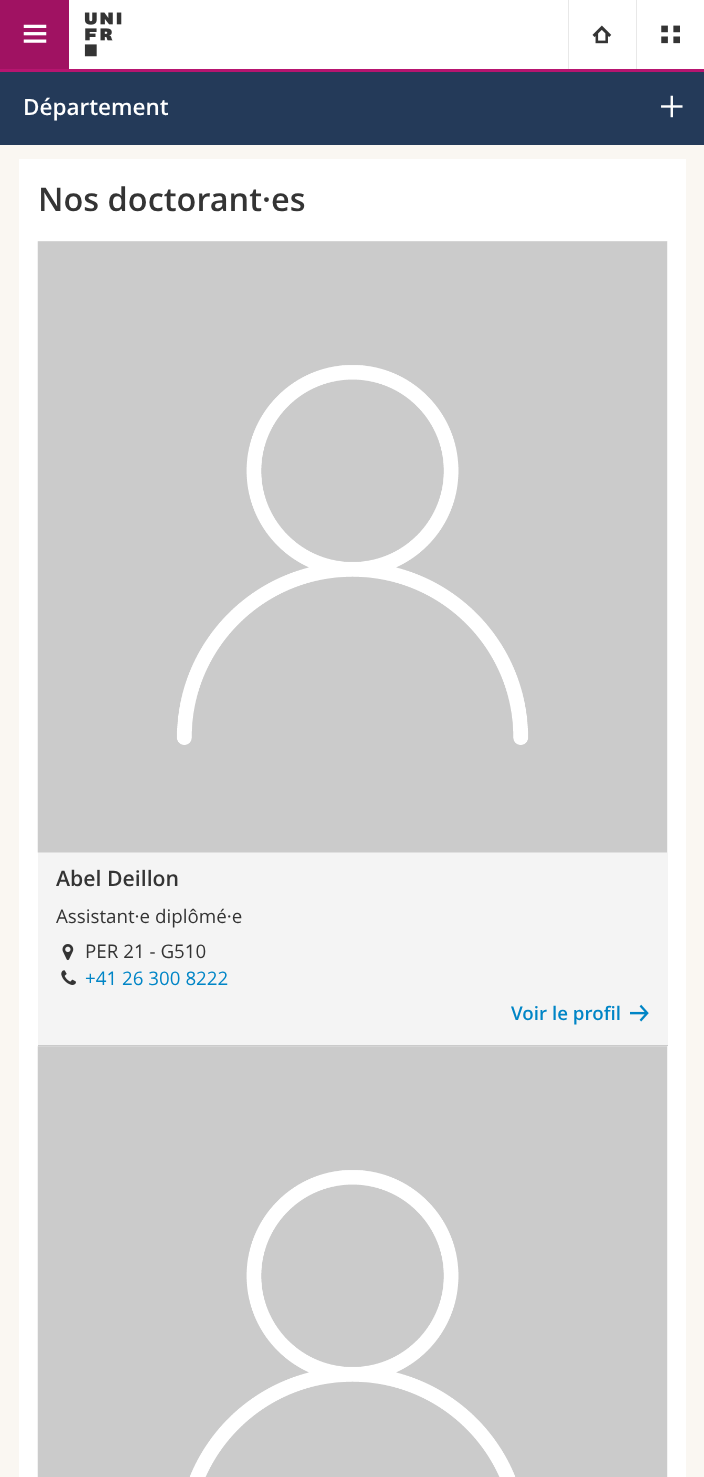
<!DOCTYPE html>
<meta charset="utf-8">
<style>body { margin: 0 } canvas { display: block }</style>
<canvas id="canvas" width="704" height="1477"></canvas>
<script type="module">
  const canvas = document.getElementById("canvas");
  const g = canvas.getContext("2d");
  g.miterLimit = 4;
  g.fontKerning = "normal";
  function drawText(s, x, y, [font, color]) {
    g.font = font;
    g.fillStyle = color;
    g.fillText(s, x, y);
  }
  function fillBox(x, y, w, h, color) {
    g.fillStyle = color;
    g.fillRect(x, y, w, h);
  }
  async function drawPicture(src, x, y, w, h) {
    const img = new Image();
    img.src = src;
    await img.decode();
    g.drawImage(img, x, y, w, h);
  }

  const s1 = ["600 22.5px Open Sans", "#FFFFFF"];
  const s2 = ["600 32.5px Open Sans", "#343434"];
  const s3 = ["600 21.25px Open Sans", "#343434"];
  const s4 = ["18.75px Open Sans", "#343434"];
  const s5 = ["18.75px Open Sans", "#0085C6"];
  const s6 = ["600 18.75px Open Sans", "#0085C6"];

  fillBox(0, 0, 704, 1477, "#FAF7F2");
  fillBox(69, 0, 635, 69, "#FFFFFF");
  fillBox(0, 0, 69, 69, "#A01262");
  await drawPicture("pic1.png", 23, 24, 24, 19);
  await drawPicture("pic2.png", 84, 12, 38, 45);
  fillBox(568, 0, 1, 69, "#E8E8E8");
  await drawPicture("pic3.png", 592, 25, 20, 19);
  fillBox(636, 0, 1, 69, "#E8E8E8");
  await drawPicture("pic4.png", 661, 25, 19, 19);
  fillBox(0, 69, 704, 3, "#B71570");
  fillBox(19, 159, 667, 1318, "#FFFFFF");
  fillBox(0, 72, 704, 73, "#243A59");
  drawText("Département", 23, 115, s1);
  await drawPicture("pic5.png", 661, 95, 22, 23);
  drawText("Nos doctorant·es", 38, 211, s2);
  fillBox(38, 241, 630, 804, "#F4F4F4");
  fillBox(38, 1045, 630, 1, "#CBCBCB");
  await drawPicture("pic6.png", 37, 241, 630, 612);
  drawText("Abel Deillon", 56, 886, s3);
  drawText("Assistant·e diplômé·e", 56, 923, s4);
  await drawPicture("pic7.png", 62, 944, 12, 17);
  drawText("PER 21 - G510", 85, 958, s4);
  await drawPicture("pic8.png", 61, 970, 15, 15);
  drawText("+41 26 300 8222", 85, 985, s5);
  drawText("Voir le profil", 511, 1020, s6);
  await drawPicture("pic9.png", 630, 1004, 19, 18);
  fillBox(38, 1046, 630, 431, "#F4F4F4");
  await drawPicture("pic10.png", 37, 1046, 630, 431);
</script>
